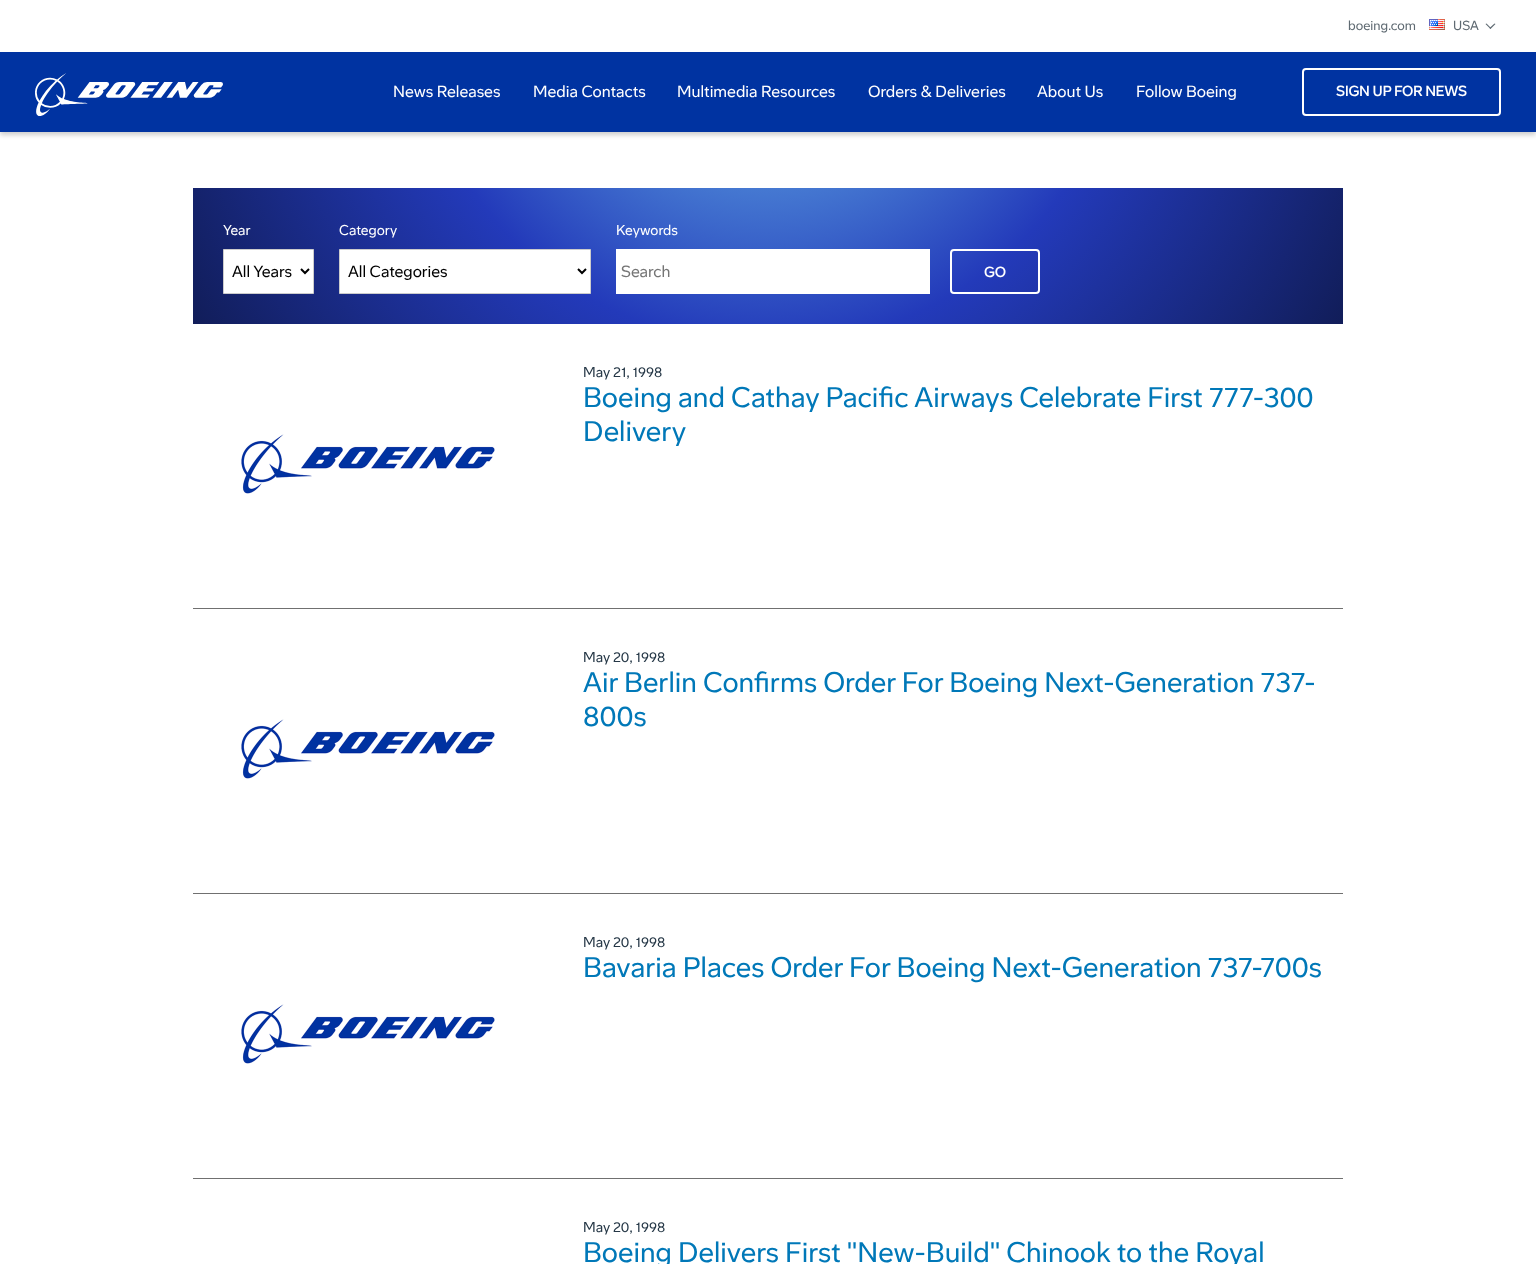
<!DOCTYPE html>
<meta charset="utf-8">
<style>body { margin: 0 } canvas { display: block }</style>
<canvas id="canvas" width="1536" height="1264"></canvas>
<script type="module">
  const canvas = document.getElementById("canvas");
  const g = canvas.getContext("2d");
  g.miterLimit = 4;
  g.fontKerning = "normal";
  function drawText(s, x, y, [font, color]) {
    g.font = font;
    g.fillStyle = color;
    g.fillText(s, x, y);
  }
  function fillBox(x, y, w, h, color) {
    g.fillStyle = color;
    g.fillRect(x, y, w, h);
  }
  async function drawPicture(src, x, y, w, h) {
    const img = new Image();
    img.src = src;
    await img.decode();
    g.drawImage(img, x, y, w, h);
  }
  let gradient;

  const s1 = ["13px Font", "#5F6A72"];
  const s2 = ["16px Font", "#FFFFFF"];
  const s3 = ["bold 14px Font", "#FFFFFF"];
  const s4 = ["14px Font", "#FFFFFF"];
  const s5 = ["16px Font", "#000000"];
  const s6 = ["16px Font", "#757575"];
  const s7 = ["14px Font", "#253746"];
  const s8 = ["28px Font", "#0078B8"];

  fillBox(0, 0, 1536, 1264, "#FFFFFF");
  g.fillStyle = "rgba(0, 0, 0, 0.2)";
  g.filter = "blur(2.5px)";
  g.beginPath();
  g.rect(0, 3, 1536, 132);
  g.fill();
  g.filter = "none";
  fillBox(0, 0, 1536, 52, "#FFFFFF");
  drawText("boeing.com", 1348, 30, s1);
  await drawPicture("pic1.png", 1429, 19, 16, 11);
  drawText("USA", 1453, 30, s1);
  g.beginPath();
  g.moveTo(1495.5, 24);
  g.lineTo(1490.5, 29);
  g.lineTo(1489.5, 28);
  g.lineTo(1494.5, 23.5);
  g.closePath();
  g.fill();
  g.beginPath();
  g.moveTo(1491, 28);
  g.lineTo(1490.5, 29);
  g.lineTo(1485.5, 24);
  g.lineTo(1486.5, 23.5);
  g.closePath();
  g.fill();
  fillBox(0, 52, 1536, 80, "#0033A1");
  await drawPicture("pic2.png", 35, 73, 188, 43);
  drawText("News Releases", 393, 97, s2);
  drawText("Media Contacts", 533, 97, s2);
  drawText("Multimedia Resources", 677, 97, s2);
  drawText("Orders & Deliveries", 868, 97, s2);
  drawText("About Us", 1037, 97, s2);
  drawText("Follow Boeing", 1136, 97, s2);
  g.beginPath();
  g.roundRect(1303, 69, 197, 46, 3);
  g.strokeStyle = "#FFFFFF";
  g.lineWidth = 2;
  g.stroke();
  drawText("SIGN UP FOR NEWS", 1336, 96, s3);
  gradient = g.createRadialGradient(768, -16, 0, 768, -16, 668);
  gradient.addColorStop(0, "#72CAF0");
  gradient.addColorStop(0.54, "#233ABA");
  gradient.addColorStop(1, "#111D59");
  g.fillStyle = gradient;
  g.fillRect(193, 188, 1150, 136);
  drawText("Year", 223, 235, s4);
  g.beginPath();
  g.rect(223.5, 249.5, 90, 44);
  g.fill();
  g.strokeStyle = "#CCCCCC";
  g.lineWidth = 1;
  g.stroke();
  g.beginPath();
  g.moveTo(301, 269);
  g.lineTo(305, 273);
  g.lineTo(309, 269);
  g.strokeStyle = "#000000";
  g.lineWidth = 2;
  g.stroke();
  drawText("All Years", 232, 277, s5);
  drawText("Category", 339, 235, s4);
  g.beginPath();
  g.rect(339.5, 249.5, 251, 44);
  g.fill();
  g.strokeStyle = "#CCCCCC";
  g.lineWidth = 1;
  g.stroke();
  g.beginPath();
  g.moveTo(578, 269);
  g.lineTo(582, 273);
  g.lineTo(586, 269);
  g.strokeStyle = "#000000";
  g.lineWidth = 2;
  g.stroke();
  drawText("All Categories", 348, 277, s5);
  drawText("Keywords", 616, 235, s4);
  fillBox(616, 249, 314, 45, "#FFFFFF");
  drawText("Search", 621, 277, s6);
  g.beginPath();
  g.roundRect(951, 250, 88, 43, 3);
  g.strokeStyle = "#FFFFFF";
  g.stroke();
  drawText("GO", 984, 277, s3);
  fillBox(193, 608, 1150, 1, "#707070");
  drawText("May 21, 1998", 583, 377, s7);
  drawText("Boeing and Cathay Pacific Airways Celebrate First 777-300", 583, 407, s8);
  drawText("Delivery", 583, 441, s8);
  await drawPicture("pic3.png", 241, 434, 254, 60);
  fillBox(193, 893, 1150, 1, "#707070");
  drawText("May 20, 1998", 583, 662, s7);
  drawText("Air Berlin Confirms Order For Boeing Next-Generation 737-", 583, 692, s8);
  drawText("800s", 583, 726, s8);
  await drawPicture("pic3.png", 241, 719, 254, 60);
  fillBox(193, 1178, 1150, 1, "#707070");
  drawText("May 20, 1998", 583, 947, s7);
  drawText("Bavaria Places Order For Boeing Next-Generation 737-700s", 583, 977, s8);
  await drawPicture("pic3.png", 241, 1004, 254, 60);
  drawText("May 20, 1998", 583, 1232, s7);
  drawText("Boeing Delivers First \"New-Build\" Chinook to the Royal", 583, 1262, s8);
</script>
